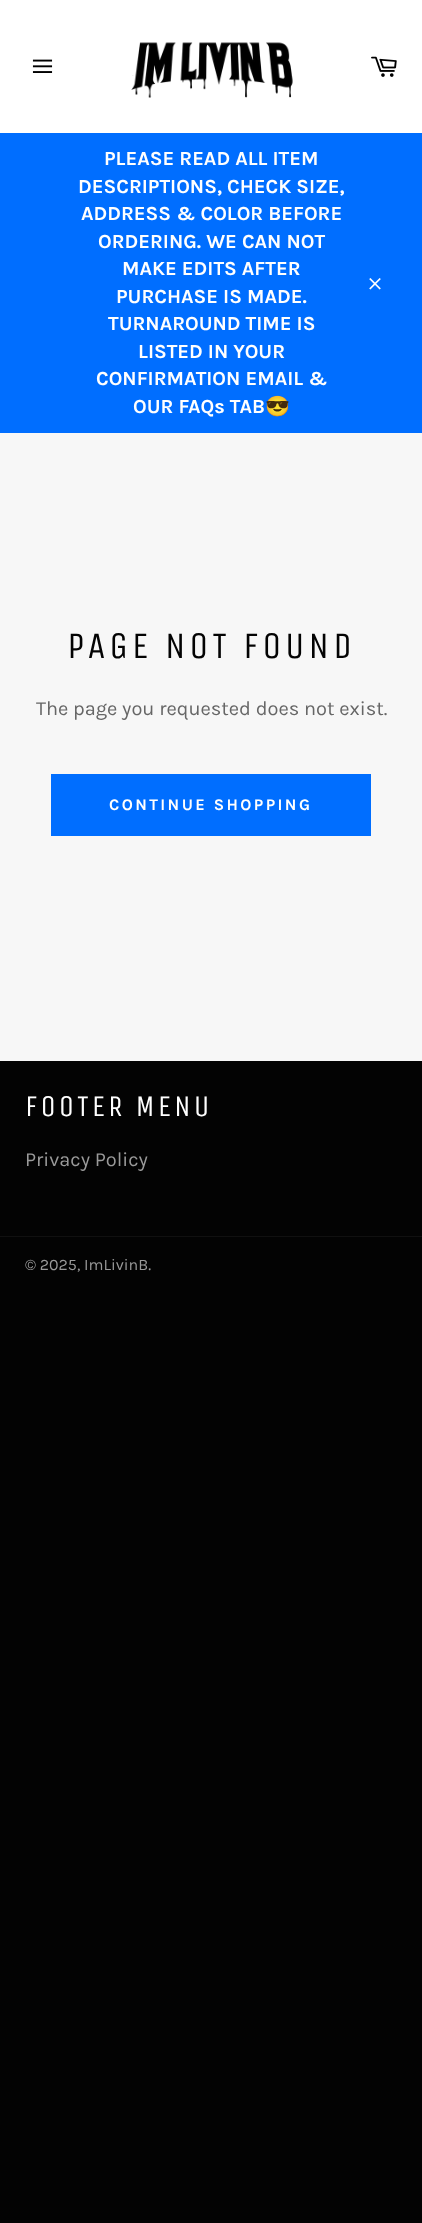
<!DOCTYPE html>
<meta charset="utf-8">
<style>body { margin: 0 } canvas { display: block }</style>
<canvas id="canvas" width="422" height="2223"></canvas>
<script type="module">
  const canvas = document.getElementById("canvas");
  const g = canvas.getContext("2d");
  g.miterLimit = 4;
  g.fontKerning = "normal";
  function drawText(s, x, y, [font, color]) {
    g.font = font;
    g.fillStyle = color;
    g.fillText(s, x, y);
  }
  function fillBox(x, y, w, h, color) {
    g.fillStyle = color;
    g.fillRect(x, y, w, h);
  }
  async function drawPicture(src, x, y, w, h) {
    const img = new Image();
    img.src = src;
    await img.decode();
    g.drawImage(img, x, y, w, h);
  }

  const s1 = ["bold 20px Karla", "#FFFFFF"];
  const s2 = ["bold 20px Noto Color Emoji", "#FFFFFF"];
  const s3 = ["37.5px Unica One", "#030303"];
  const s4 = ["20px Karla", "#666666"];
  const s5 = ["bold 16.25px Karla", "#FFFFFF"];
  const s6 = ["30px Unica One", "#FFFFFF"];
  const s7 = ["20px Karla", "#9A9A9A"];
  const s8 = ["16px Karla", "#9A9A9A"];

  fillBox(0, 0, 422, 2223, "#030303");
  fillBox(0, 433, 422, 628, "#F7F7F7");
  fillBox(0, 0, 422, 133, "#FFFFFF");
  await drawPicture("pic1.png", 32, 59, 21, 14);
  await drawPicture("pic2.png", 131, 42, 162, 56);
  await drawPicture("pic3.png", 371, 56, 26, 21);
  fillBox(0, 133, 422, 300, "#006EFF");
  drawText("PLEASE READ ALL ITEM", 104, 165, s1);
  drawText("DESCRIPTIONS, CHECK SIZE,", 78, 193, s1);
  drawText("ADDRESS & COLOR BEFORE", 81, 220, s1);
  drawText("ORDERING. WE CAN NOT", 98, 248, s1);
  drawText("MAKE EDITS AFTER", 122, 275, s1);
  drawText("PURCHASE IS MADE.", 116, 303, s1);
  drawText("TURNAROUND TIME IS", 108, 330, s1);
  drawText("LISTED IN YOUR", 138, 358, s1);
  drawText("CONFIRMATION EMAIL &", 96, 385, s1);
  drawText("OUR FAQs TAB", 133, 413, s1);
  drawText("😎", 265, 413, s2);
  await drawPicture("pic4.png", 369, 278, 12, 12);
  g.letterSpacing = "3.75px";
  drawText("PAGE NOT FOUND", 67, 658, s3);
  g.letterSpacing = "0px";
  drawText("The page you requested does not exist.", 36, 715, s4);
  fillBox(51, 774, 320, 62, "#006EFF");
  g.letterSpacing = "2.4px";
  drawText("CONTINUE SHOPPING", 109, 810, s5);
  g.letterSpacing = "3px";
  drawText("FOOTER MENU", 25, 1116, s6);
  g.letterSpacing = "0px";
  drawText("Privacy Policy", 25, 1166, s7);
  fillBox(0, 1236, 422, 1, "#101010");
  drawText("© 2025, ImLivinB.", 25, 1270, s8);
</script>
